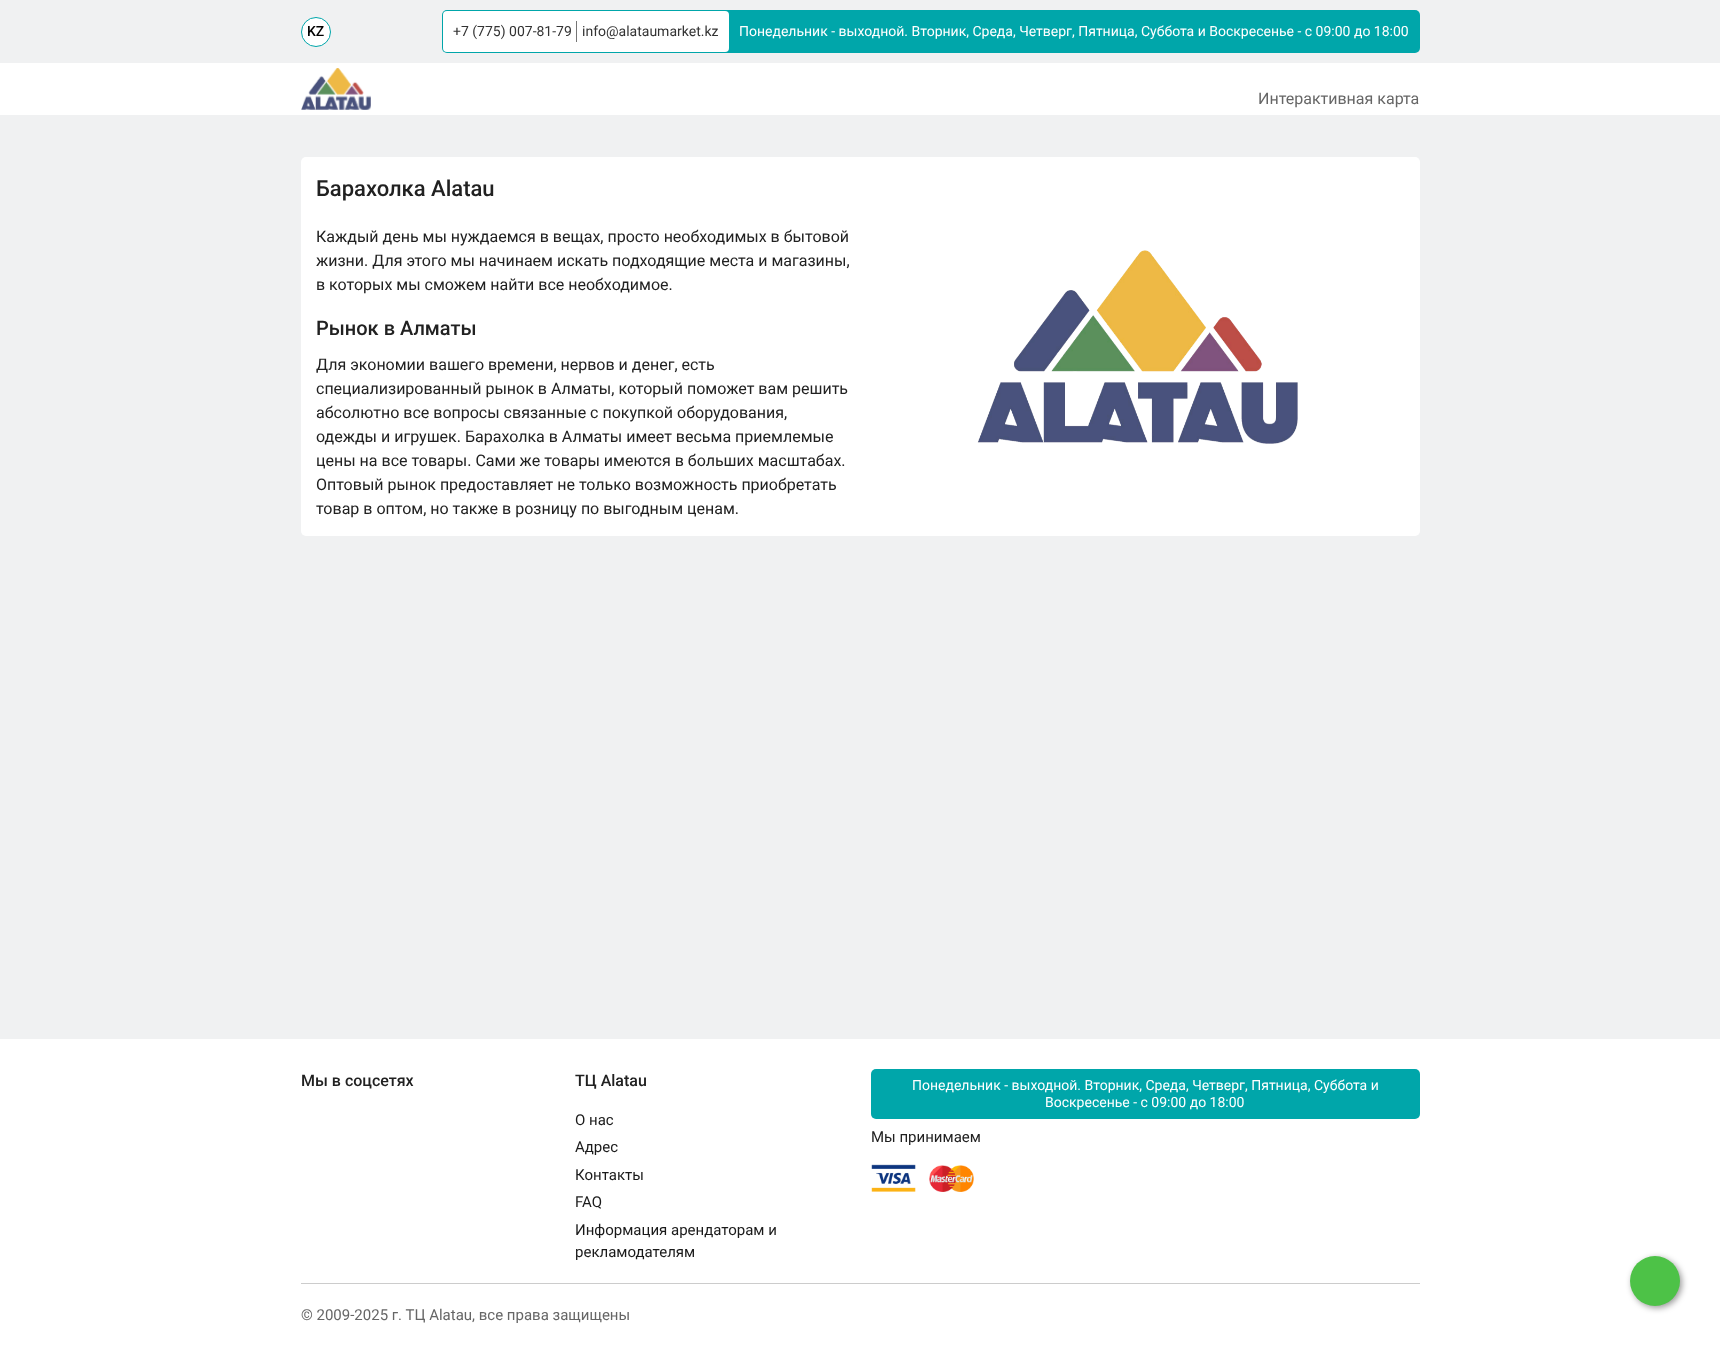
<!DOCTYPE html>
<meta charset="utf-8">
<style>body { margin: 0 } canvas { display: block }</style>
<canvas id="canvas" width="1720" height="1346"></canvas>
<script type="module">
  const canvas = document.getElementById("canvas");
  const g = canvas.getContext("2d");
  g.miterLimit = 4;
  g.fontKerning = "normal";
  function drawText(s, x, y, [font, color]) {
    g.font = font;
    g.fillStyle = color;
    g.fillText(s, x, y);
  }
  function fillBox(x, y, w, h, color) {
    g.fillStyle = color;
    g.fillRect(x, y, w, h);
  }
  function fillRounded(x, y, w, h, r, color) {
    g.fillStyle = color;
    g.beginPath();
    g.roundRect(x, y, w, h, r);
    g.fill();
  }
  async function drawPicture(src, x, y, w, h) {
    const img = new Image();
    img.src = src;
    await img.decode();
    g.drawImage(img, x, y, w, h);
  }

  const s1 = ["500 14px Roboto", "#000000"];
  const s2 = ["14px Roboto", "#333333"];
  const s3 = ["14px Roboto", "#FFFFFF"];
  const s4 = ["16px Roboto", "#666666"];
  const s5 = ["500 22px Roboto", "#212121"];
  const s6 = ["16px Roboto", "#212121"];
  const s7 = ["500 20px Roboto", "#212121"];
  const s8 = ["500 16px Roboto", "#212121"];
  const s9 = ["15px Roboto", "#1A1A1A"];
  const s10 = ["15px Roboto", "#212121"];
  const s11 = ["15px Roboto", "#666666"];

  fillBox(0, 0, 1720, 1346, "#F0F1F2");
  g.fillStyle = "#FFFFFF";
  g.beginPath();
  g.arc(316, 32, 14.5, 0, Math.PI * 2);
  g.fill();
  g.strokeStyle = "#00A6AA";
  g.stroke();
  drawText("KZ", 307, 36, s1);
  fillRounded(442, 10, 978, 43, 5, "#00A6AA");
  fillRounded(443, 11, 286, 41, 4, "#FFFFFF");
  drawText("+7 (775) 007-81-79", 453, 36, s2);
  fillBox(576, 21, 1, 21, "#757575");
  drawText("info@alataumarket.kz", 582, 36, s2);
  drawText("Понедельник - выходной. Вторник, Среда, Четверг, Пятница, Суббота и Воскресенье - с 09:00 до 18:00", 739, 36, s3);
  fillBox(0, 63, 1720, 52, "#FFFFFF");
  await drawPicture("pic1.png", 301, 68, 70, 42);
  drawText("Интерактивная карта", 1258, 104, s4);
  fillRounded(301, 157, 1119, 379, 5, "#FFFFFF");
  drawText("Барахолка Alatau", 316, 196, s5);
  drawText("Каждый день мы нуждаемся в вещах, просто необходимых в бытовой", 316, 242, s6);
  drawText("жизни. Для этого мы начинаем искать подходящие места и магазины,", 316, 266, s6);
  drawText("в которых мы сможем найти все необходимое.", 316, 290, s6);
  drawText("Рынок в Алматы", 316, 335, s7);
  drawText("Для экономии вашего времени, нервов и денег, есть", 316, 370, s6);
  drawText("специализированный рынок в Алматы, который поможет вам решить", 316, 394, s6);
  drawText("абсолютно все вопросы связанные с покупкой оборудования,", 316, 418, s6);
  drawText("одежды и игрушек. Барахолка в Алматы имеет весьма приемлемые", 316, 442, s6);
  drawText("цены на все товары. Сами же товары имеются в больших масштабах.", 316, 466, s6);
  drawText("Оптовый рынок предоставляет не только возможность приобретать", 316, 490, s6);
  drawText("товар в оптом, но также в розницу по выгодным ценам.", 316, 514, s6);
  await drawPicture("pic2.png", 977, 250, 321, 194);
  fillBox(0, 1039, 1720, 307, "#FFFFFF");
  g.fillStyle = "rgba(0, 0, 0, 0.4)";
  g.filter = "blur(3px)";
  g.beginPath();
  g.roundRect(1632, 1258, 50, 50, 25);
  g.fill();
  g.filter = "none";
  g.fillStyle = "#4DC247";
  g.beginPath();
  g.arc(1655, 1281, 25, 0, Math.PI * 2);
  g.fill();
  drawText("Мы в соцсетях", 301, 1086, s8);
  drawText("ТЦ Alatau", 575, 1086, s8);
  drawText("О нас", 575, 1125, s9);
  drawText("Адрес", 575, 1152, s9);
  drawText("Контакты", 575, 1180, s9);
  drawText("FAQ", 575, 1207, s9);
  drawText("Информация арендаторам и", 575, 1235, s9);
  drawText("рекламодателям", 575, 1257, s9);
  fillRounded(871, 1069, 549, 50, 5, "#00A6AA");
  drawText("Понедельник - выходной. Вторник, Среда, Четверг, Пятница, Суббота и", 912, 1090, s3);
  drawText("Воскресенье - с 09:00 до 18:00", 1045, 1107, s3);
  drawText("Мы принимаем", 871, 1142, s10);
  await drawPicture("pic3.png", 871, 1164, 45, 28);
  await drawPicture("pic4.png", 929, 1165, 45, 27);
  fillBox(301, 1283, 1119, 1, "#CCCCCC");
  drawText("© 2009-2025 г. ТЦ Alatau, все права защищены", 301, 1320, s11);
</script>
